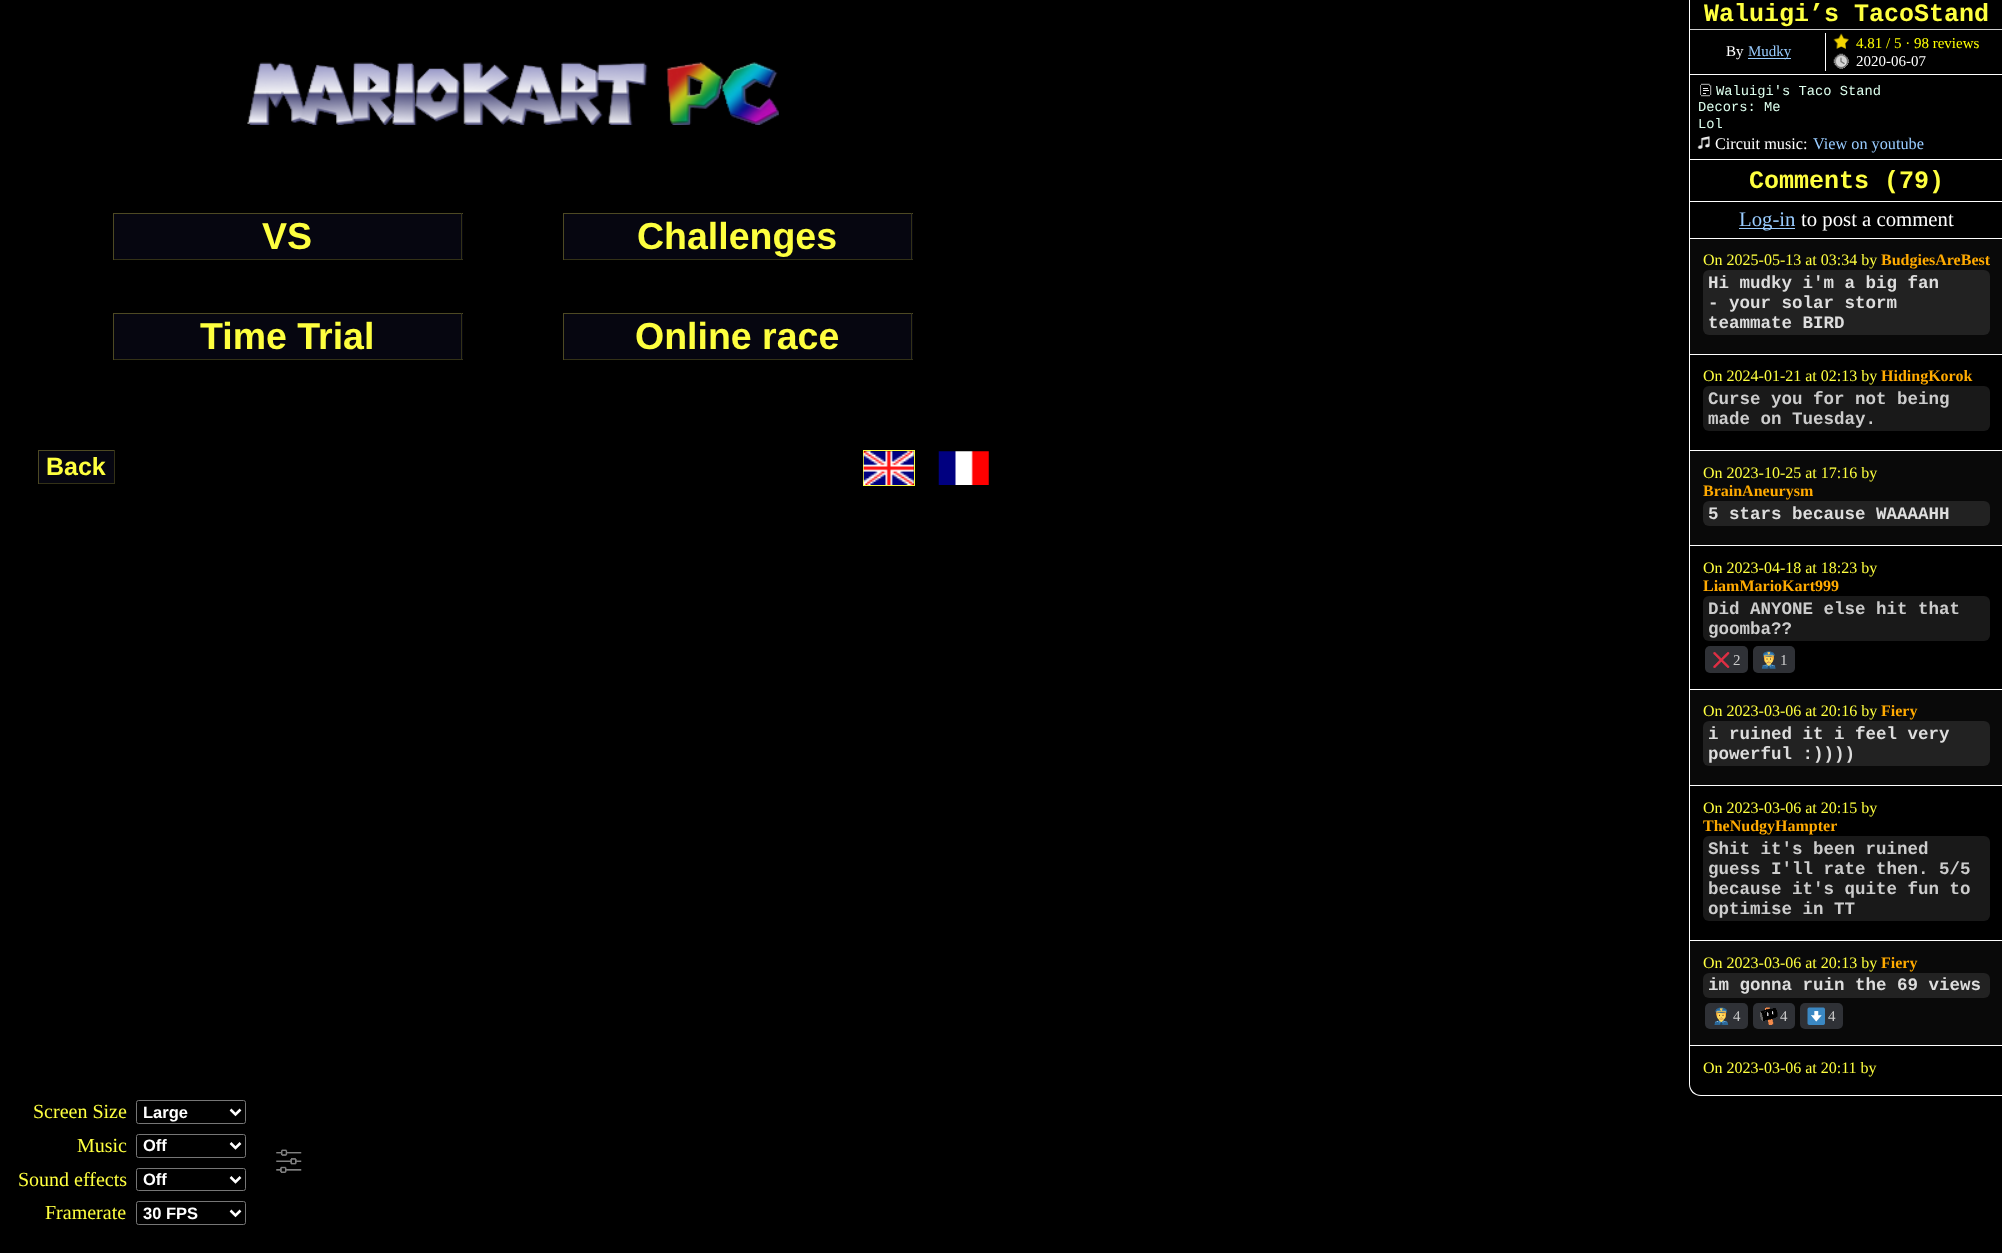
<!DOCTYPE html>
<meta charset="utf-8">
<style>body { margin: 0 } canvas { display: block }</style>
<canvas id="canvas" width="2002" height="1253"></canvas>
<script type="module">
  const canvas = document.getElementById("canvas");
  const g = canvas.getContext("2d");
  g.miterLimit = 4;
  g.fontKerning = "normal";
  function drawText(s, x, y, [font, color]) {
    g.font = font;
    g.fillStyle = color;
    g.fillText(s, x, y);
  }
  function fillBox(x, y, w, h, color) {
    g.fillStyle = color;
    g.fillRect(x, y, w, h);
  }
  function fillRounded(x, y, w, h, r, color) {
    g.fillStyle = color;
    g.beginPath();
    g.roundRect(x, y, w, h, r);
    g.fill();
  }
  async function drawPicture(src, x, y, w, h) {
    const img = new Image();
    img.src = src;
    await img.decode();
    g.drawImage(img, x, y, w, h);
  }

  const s1 = ["bold 37.5px Liberation Sans", "#FEFF3F"];
  const s2 = ["bold 25px Liberation Sans", "#FEFF3F"];
  const s3 = ["bold 25px Liberation Mono", "#FEFF3F"];
  const s4 = ["15px Liberation Serif", "#FFFF00"];
  const s5 = ["15px Liberation Serif", "#FFFFFF"];
  const s6 = ["15px Liberation Serif", "#99CCFF"];
  const s7 = ["13.75px Liberation Mono", "#DDFFEE"];
  const s8 = ["16.25px Liberation Serif", "#FFFFFF"];
  const s9 = ["16.25px Liberation Serif", "#99CCFF"];
  const s10 = ["20.75px Liberation Serif", "#99CCFF"];
  const s11 = ["20.75px Liberation Serif", "#FFFFFF"];
  const s12 = ["16px Liberation Serif", "#FEFF3F"];
  const s13 = ["bold 16px Liberation Serif", "#FFAA00"];
  const s14 = ["bold 17.5px Liberation Mono", "#DDDDDD"];
  const s15 = ["bold 17.5px Liberation Mono", "#CCCCCC"];
  const s16 = ["15px Liberation Serif", "#CCCCCC"];
  const s17 = ["20px Liberation Serif", "#FEFF3F"];
  const s18 = ["bold 16.5px Liberation Sans", "#FFFFFF"];

  fillBox(0, 0, 2002, 1253, "#000000");
  await drawPicture("pic1.png", 247, 62, 532, 63);
  fillBox(114, 214, 349, 45, "#060610");
  fillBox(113, 213, 350, 1, "#4D4923");
  fillBox(461, 213, 1, 47, "#333117");
  fillBox(113, 259, 350, 1, "#333117");
  fillBox(113, 213, 1, 47, "#4D4923");
  drawText("VS", 262, 249, s1);
  fillBox(564, 214, 349, 45, "#060610");
  fillBox(563, 213, 350, 1, "#4D4923");
  fillBox(911, 213, 1, 47, "#333117");
  fillBox(563, 259, 350, 1, "#333117");
  fillBox(563, 213, 1, 47, "#4D4923");
  drawText("Challenges", 637, 249, s1);
  fillBox(114, 314, 349, 45, "#060610");
  fillBox(113, 313, 350, 1, "#4D4923");
  fillBox(461, 313, 1, 47, "#333117");
  fillBox(113, 359, 350, 1, "#333117");
  fillBox(113, 313, 1, 47, "#4D4923");
  drawText("Time Trial", 200, 349, s1);
  fillBox(564, 314, 349, 45, "#060610");
  fillBox(563, 313, 350, 1, "#4D4923");
  fillBox(911, 313, 1, 47, "#333117");
  fillBox(563, 359, 350, 1, "#333117");
  fillBox(563, 313, 1, 47, "#4D4923");
  drawText("Online race", 635, 349, s1);
  fillBox(39, 451, 75, 32, "#060610");
  fillBox(38, 450, 77, 1, "#4D4923");
  fillBox(114, 450, 1, 34, "#333117");
  fillBox(38, 483, 77, 1, "#333117");
  fillBox(38, 450, 1, 34, "#4D4923");
  drawText("Back", 46, 475, s2);
  g.strokeStyle = "#FEFF3F";
  g.strokeRect(863.5, 450.5, 51, 35);
  await drawPicture("pic2.png", 863, 451, 51, 34);
  await drawPicture("pic3.png", 938, 451, 51, 34);
  g.fillStyle = "#FFFFFF";
  g.beginPath();
  g.moveTo(1689, 0);
  g.lineTo(2002, 0);
  g.lineTo(2002, 1096);
  g.lineTo(1701, 1096);
  g.bezierCurveTo(1694, 1096, 1689, 1091, 1689, 1084);
  g.closePath();
  g.moveTo(1690, 0);
  g.lineTo(2002, 0);
  g.lineTo(2002, 1095);
  g.lineTo(1701, 1095);
  g.bezierCurveTo(1695, 1095, 1690, 1090, 1690, 1084);
  g.closePath();
  g.fill("evenodd");
  fillBox(1690, 29, 312, 1, "#CCCCCC");
  drawText("Waluigi’s TacoStand", 1704, 21, s3);
  fillBox(1690, 74, 312, 1, "#FFFFFF");
  await drawPicture("pic4.png", 1833, 33, 16, 16);
  drawText("4.81 / 5 · 98 reviews", 1856, 48, s4);
  fillBox(1825, 33, 1, 38, "#FFFFFF");
  drawText("By", 1726, 56, s5);
  fillBox(1748, 58, 43, 1, "#99CCFF");
  drawText("Mudky", 1748, 56, s6);
  await drawPicture("pic5.png", 1833, 53, 16, 16);
  drawText("2020-06-07", 1856, 66, s5);
  fillBox(1690, 159, 312, 1, "#FFFFFF");
  await drawPicture("pic6.png", 1700, 83, 12, 14);
  drawText("Waluigi's Taco Stand", 1716, 95, s7);
  drawText("Decors: Me", 1698, 111, s7);
  drawText("Lol", 1698, 128, s7);
  await drawPicture("pic7.png", 1697, 136, 13, 13);
  drawText("Circuit music:", 1715, 149, s8);
  drawText("View on youtube", 1813, 149, s9);
  drawText("Comments (79)", 1749, 188, s3);
  fillBox(1690, 201, 312, 1, "#FFFFFF");
  fillBox(1690, 238, 312, 1, "#FFFFFF");
  fillBox(1739, 228, 56, 1, "#99CCFF");
  drawText("Log-in", 1739, 226, s10);
  drawText("to post a comment", 1801, 226, s11);
  fillBox(1690, 239, 312, 115, "#090909");
  fillBox(1690, 354, 312, 1, "#FFFFFF");
  drawText("On 2025-05-13 at 03:34 by", 1703, 265, s12);
  drawText("BudgiesAreBest", 1881, 265, s13);
  fillRounded(1703, 270, 287, 65, 6, "#222222");
  drawText("Hi mudky i'm a big fan", 1708, 288, s14);
  drawText("- your solar storm", 1708, 308, s14);
  drawText("teammate BIRD", 1708, 328, s14);
  fillBox(1690, 450, 312, 1, "#FFFFFF");
  drawText("On 2024-01-21 at 02:13 by", 1703, 381, s12);
  drawText("HidingKorok", 1881, 381, s13);
  fillRounded(1703, 386, 287, 45, 6, "#191919");
  drawText("Curse you for not being", 1708, 404, s15);
  drawText("made on Tuesday.", 1708, 424, s15);
  fillBox(1690, 451, 312, 94, "#090909");
  fillBox(1690, 545, 312, 1, "#FFFFFF");
  drawText("On 2023-10-25 at 17:16 by", 1703, 478, s12);
  drawText("BrainAneurysm", 1703, 496, s13);
  fillRounded(1703, 501, 287, 25, 6, "#222222");
  drawText("5 stars because WAAAAHH", 1708, 519, s14);
  fillBox(1690, 689, 312, 1, "#FFFFFF");
  drawText("On 2023-04-18 at 18:23 by", 1703, 573, s12);
  drawText("LiamMarioKart999", 1703, 591, s13);
  fillRounded(1703, 596, 287, 45, 6, "#191919");
  drawText("Did ANYONE else hit that", 1708, 614, s15);
  drawText("goomba??", 1708, 634, s15);
  fillRounded(1705, 646, 43, 27, 5, "#2F3136");
  await drawPicture("pic8.png", 1713, 652, 17, 16);
  drawText("2", 1733, 665, s16);
  fillRounded(1753, 646, 42, 27, 5, "#2F3136");
  await drawPicture("pic9.png", 1761, 651, 15, 18);
  drawText("1", 1780, 665, s16);
  fillBox(1690, 690, 312, 95, "#090909");
  fillBox(1690, 785, 312, 1, "#FFFFFF");
  drawText("On 2023-03-06 at 20:16 by", 1703, 716, s12);
  drawText("Fiery", 1881, 716, s13);
  fillRounded(1703, 721, 287, 45, 6, "#222222");
  drawText("i ruined it i feel very", 1708, 739, s14);
  drawText("powerful :))))", 1708, 759, s14);
  fillBox(1690, 940, 312, 1, "#FFFFFF");
  drawText("On 2023-03-06 at 20:15 by", 1703, 813, s12);
  drawText("TheNudgyHampter", 1703, 831, s13);
  fillRounded(1703, 836, 287, 85, 6, "#191919");
  drawText("Shit it's been ruined", 1708, 854, s15);
  drawText("guess I'll rate then. 5/5", 1708, 874, s15);
  drawText("because it's quite fun to", 1708, 894, s15);
  drawText("optimise in TT", 1708, 914, s15);
  fillBox(1690, 941, 312, 104, "#090909");
  fillBox(1690, 1045, 312, 1, "#FFFFFF");
  drawText("On 2023-03-06 at 20:13 by", 1703, 968, s12);
  drawText("Fiery", 1881, 968, s13);
  fillRounded(1703, 973, 287, 25, 6, "#222222");
  drawText("im gonna ruin the 69 views", 1708, 990, s14);
  fillRounded(1705, 1003, 43, 26, 5, "#2F3136");
  await drawPicture("pic10.png", 1714, 1007, 15, 18);
  drawText("4", 1733, 1021, s16);
  fillRounded(1753, 1003, 42, 26, 5, "#2F3136");
  await drawPicture("pic11.png", 1760, 1007, 18, 18);
  drawText("4", 1780, 1021, s16);
  fillRounded(1800, 1003, 43, 26, 5, "#2F3136");
  await drawPicture("pic12.png", 1807, 1007, 18, 18);
  drawText("4", 1828, 1021, s16);
  g.save();
  g.beginPath();
  g.rect(1690, 75, 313, 1010);
  g.clip();
  g.fillStyle = "#000000";
  g.beginPath();
  g.moveTo(1690, 1046);
  g.lineTo(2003, 1046);
  g.lineTo(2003, 1095);
  g.lineTo(1701, 1095);
  g.bezierCurveTo(1695, 1095, 1690, 1090, 1690, 1084);
  g.closePath();
  g.fill();
  g.restore();
  drawText("On 2023-03-06 at 20:11 by", 1703, 1073, s12);
  drawText("Screen Size", 33, 1118, s17);
  g.beginPath();
  g.roundRect(136.5, 1100.5, 109, 23, 2);
  g.strokeStyle = "#767676";
  g.stroke();
  g.beginPath();
  g.moveTo(230.5, 1109.5);
  g.lineTo(235.5, 1114.5);
  g.lineTo(240.5, 1109.5);
  g.strokeStyle = "#FFFFFF";
  g.lineWidth = 2.5;
  g.stroke();
  drawText("Large", 143, 1118, s18);
  await drawPicture("pic13.png", 276, 1149, 26, 24);
  drawText("Music", 77, 1152, s17);
  g.beginPath();
  g.roundRect(136.5, 1134.5, 109, 23, 2);
  g.strokeStyle = "#767676";
  g.lineWidth = 1;
  g.stroke();
  g.beginPath();
  g.moveTo(230.5, 1143);
  g.lineTo(235.5, 1148);
  g.lineTo(240.5, 1143);
  g.strokeStyle = "#FFFFFF";
  g.lineWidth = 2.5;
  g.stroke();
  drawText("Off", 143, 1151, s18);
  drawText("Sound effects", 18, 1186, s17);
  g.beginPath();
  g.roundRect(136.5, 1168.5, 109, 22, 2);
  g.strokeStyle = "#767676";
  g.lineWidth = 1;
  g.stroke();
  g.beginPath();
  g.moveTo(230.5, 1177);
  g.lineTo(235.5, 1182);
  g.lineTo(240.5, 1177);
  g.strokeStyle = "#FFFFFF";
  g.lineWidth = 2.5;
  g.stroke();
  drawText("Off", 143, 1185, s18);
  drawText("Framerate", 45, 1219, s17);
  g.beginPath();
  g.roundRect(136.5, 1201.5, 109, 23, 2);
  g.strokeStyle = "#767676";
  g.lineWidth = 1;
  g.stroke();
  g.beginPath();
  g.moveTo(230.5, 1210.5);
  g.lineTo(235.5, 1215.5);
  g.lineTo(240.5, 1210.5);
  g.strokeStyle = "#FFFFFF";
  g.lineWidth = 2.5;
  g.stroke();
  drawText("30 FPS", 143, 1219, s18);
</script>
